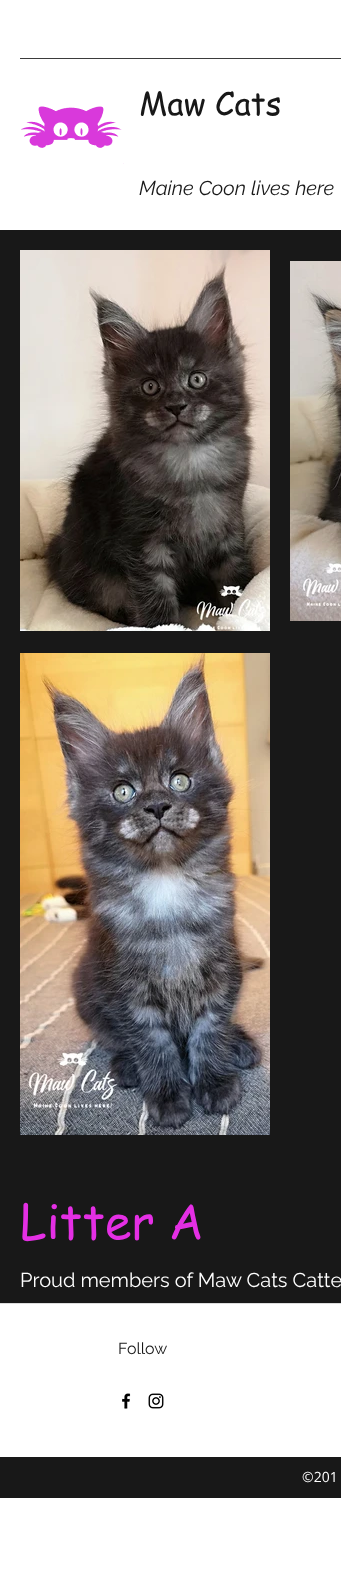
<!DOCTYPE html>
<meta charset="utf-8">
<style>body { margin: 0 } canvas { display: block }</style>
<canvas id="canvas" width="341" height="1596"></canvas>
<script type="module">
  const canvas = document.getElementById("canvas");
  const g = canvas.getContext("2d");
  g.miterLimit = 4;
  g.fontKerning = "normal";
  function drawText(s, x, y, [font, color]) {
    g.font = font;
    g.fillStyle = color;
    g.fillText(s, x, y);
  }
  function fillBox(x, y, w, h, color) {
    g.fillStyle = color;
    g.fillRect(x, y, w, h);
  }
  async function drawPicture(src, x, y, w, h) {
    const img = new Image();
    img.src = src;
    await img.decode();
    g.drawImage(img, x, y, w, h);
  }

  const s1 = ["32px 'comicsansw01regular'", "#181818"];
  const s2 = ["italic 20px Raleway", "#181818"];
  const s3 = ["48px 'comicsansw01regular'", "#E42FE4"];
  const s4 = ["20px Raleway", "#FFFFFF"];
  const s5 = ["16px Raleway", "#181818"];
  const s6 = ["14px Open Sans", "#FFFFFF"];

  fillBox(0, 0, 341, 1596, "#FFFFFF");
  fillBox(20, 58, 321, 1, "#3B3B3B");
  await drawPicture("pic1.png", 21, 106, 103, 58);
  drawText("Maw Cats", 139, 115, s1);
  drawText("Maine Coon lives here", 139, 195, s2);
  fillBox(0, 230, 341, 1073, "#181818");
  await drawPicture("pic2.png", 20, 250, 250, 381);
  await drawPicture("pic3.png", 290, 261, 51, 360);
  await drawPicture("pic4.png", 20, 653, 250, 482);
  drawText("Litter A", 20, 1239, s3);
  drawText("Proud members of Maw Cats Catte", 20, 1287, s4);
  fillBox(0, 1303, 341, 1, "#DCDCDC");
  drawText("Follow", 118, 1354, s5);
  await drawPicture("pic5.png", 122, 1393, 9, 16);
  await drawPicture("pic6.png", 148, 1393, 16, 16);
  fillBox(0, 1457, 341, 41, "#181818");
  drawText("©201", 302, 1482, s6);
</script>
